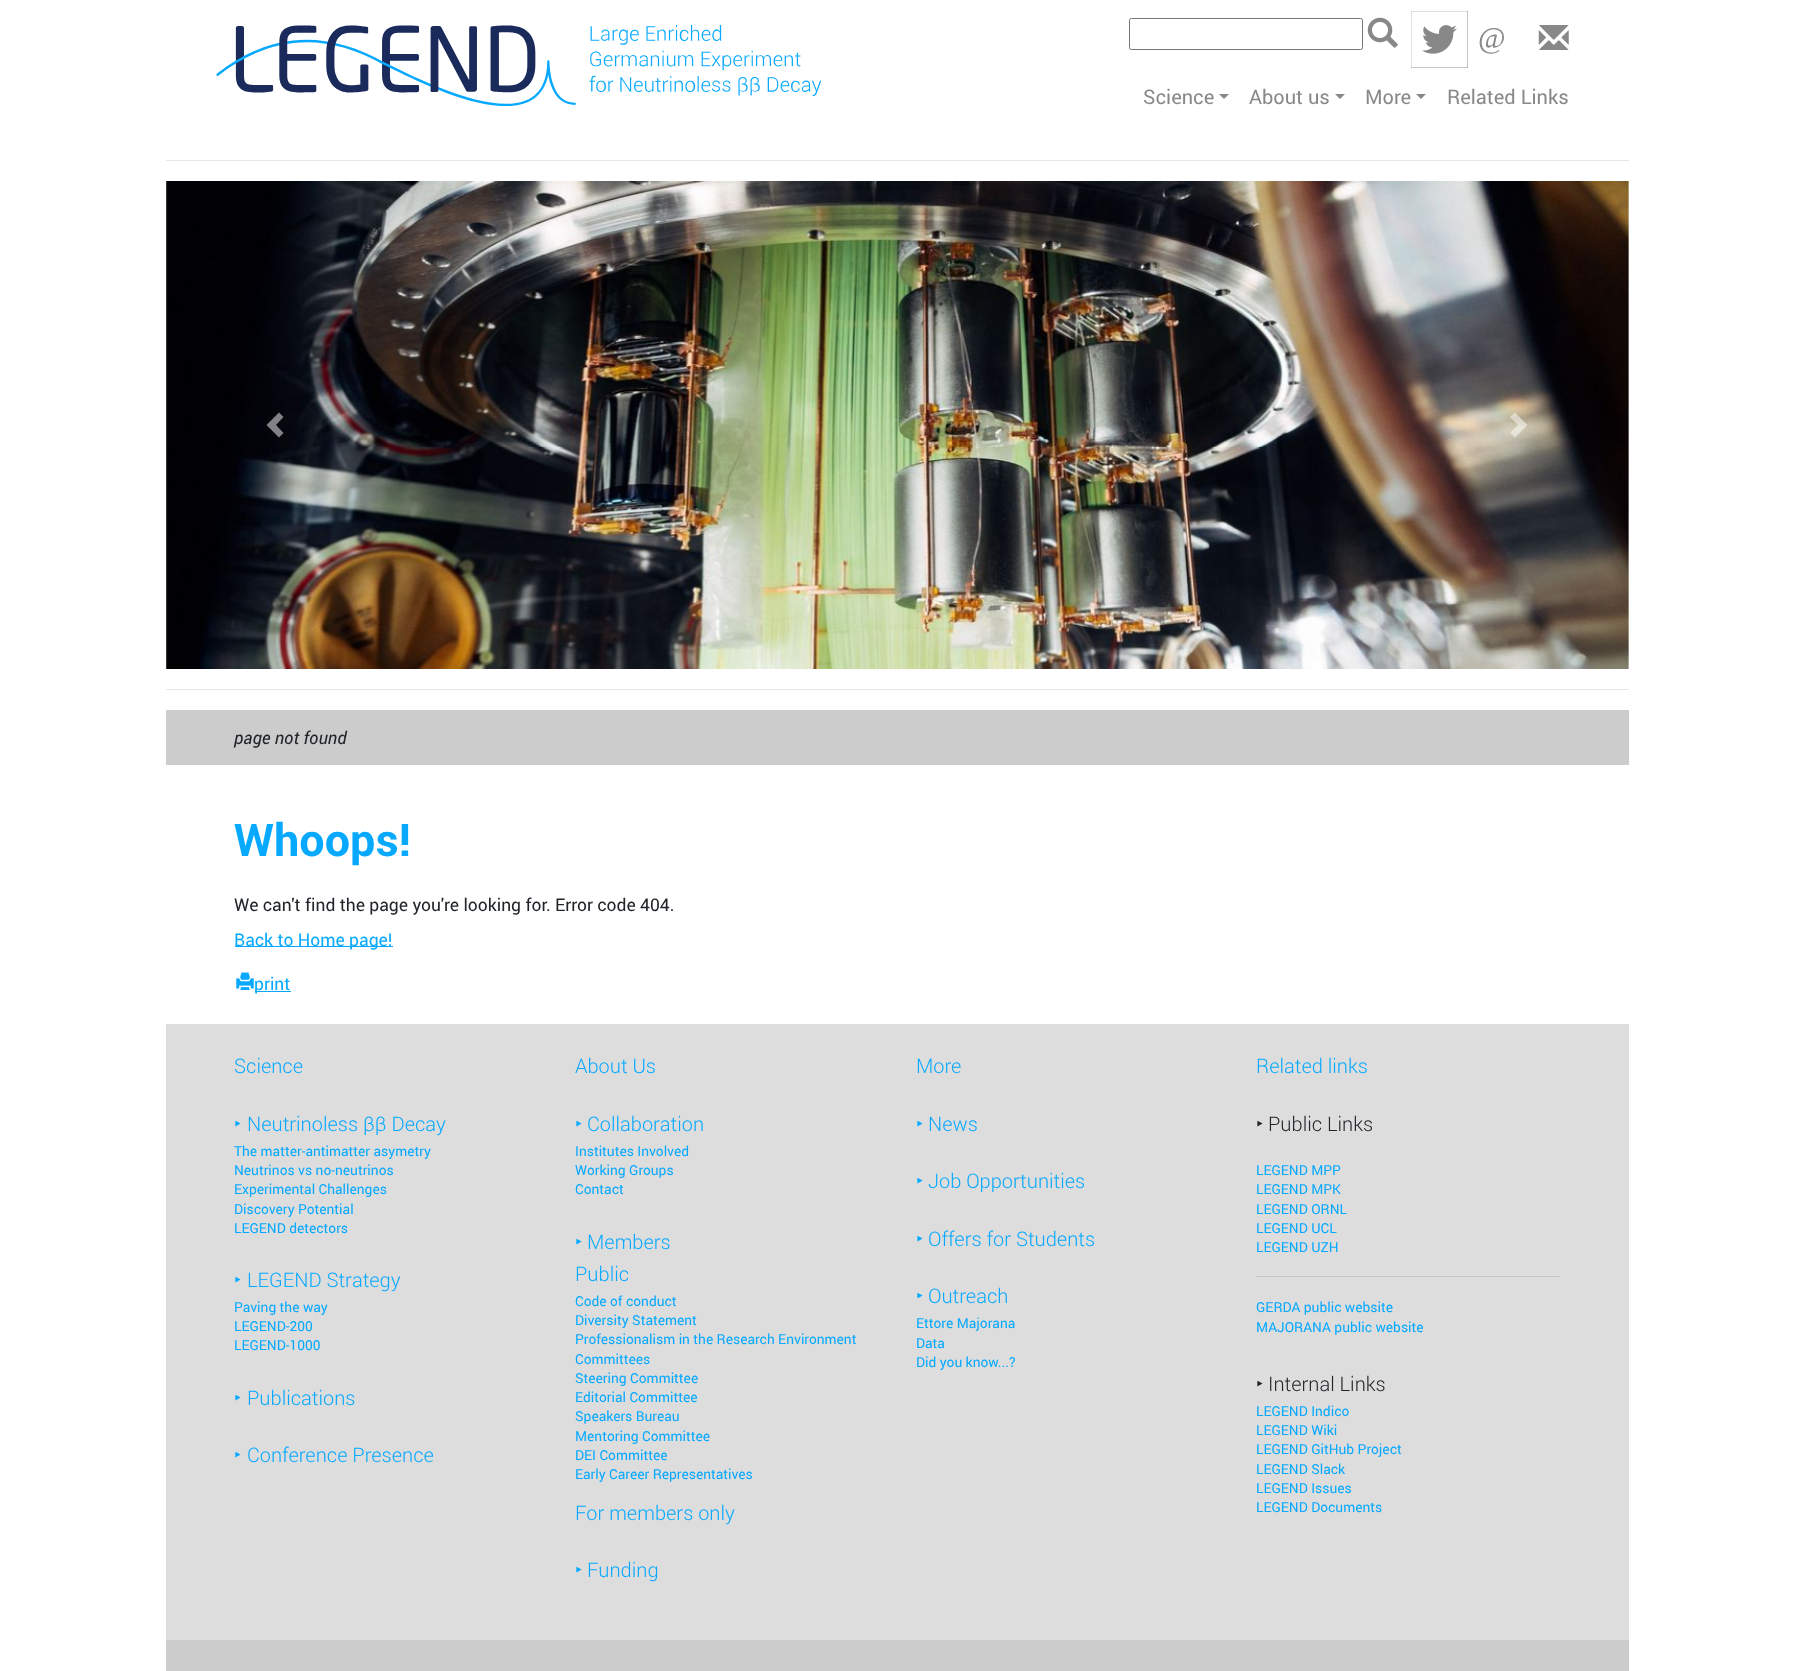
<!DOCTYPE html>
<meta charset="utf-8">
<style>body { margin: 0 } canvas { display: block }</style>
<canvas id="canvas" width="1793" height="1671"></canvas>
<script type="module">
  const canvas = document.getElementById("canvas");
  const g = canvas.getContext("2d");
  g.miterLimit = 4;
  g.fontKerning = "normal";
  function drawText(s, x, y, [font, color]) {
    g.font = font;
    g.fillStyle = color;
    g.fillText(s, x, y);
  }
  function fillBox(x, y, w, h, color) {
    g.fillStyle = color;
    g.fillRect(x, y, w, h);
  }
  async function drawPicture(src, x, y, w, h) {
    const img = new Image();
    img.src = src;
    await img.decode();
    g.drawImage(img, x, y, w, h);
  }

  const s1 = ["30px Liberation Serif", "#888888"];
  const s2 = ["20px Roboto", "#888888"];
  const s3 = ["italic 17.5px Roboto", "#212529"];
  const s4 = ["bold 45px Roboto", "#07A9FF"];
  const s5 = ["17.5px Roboto", "#212529"];
  const s6 = ["17.5px Roboto", "#07A9FF"];
  const s7 = ["300 20px Roboto", "#07A9FF"];
  const s8 = ["20px Noto Sans", "#07A9FF"];
  const s9 = ["13.75px Roboto", "#07A9FF"];
  const s10 = ["20px Noto Sans", "#212529"];
  const s11 = ["300 20px Roboto", "#212529"];

  fillBox(0, 0, 1793, 1671, "#FFFFFF");
  await drawPicture("pic1.png", 216, 25, 605, 81);
  g.beginPath();
  g.roundRect(1129.5, 18.5, 233, 31, 2);
  g.strokeStyle = "#767676";
  g.stroke();
  await drawPicture("pic2.png", 1367, 17, 31, 31);
  fillBox(1411, 11, 57, 57, "#888888");
  await drawPicture("pic3.png", 1411, 11, 57, 57);
  drawText("@", 1478, 48, s1);
  await drawPicture("pic4.png", 1538, 25, 31, 25);
  drawText("Science", 1143, 104, s2);
  g.beginPath();
  g.moveTo(1219, 94);
  g.lineTo(1229, 94);
  g.lineTo(1224, 99);
  g.closePath();
  g.fill();
  drawText("About us", 1249, 104, s2);
  g.beginPath();
  g.moveTo(1335, 94);
  g.lineTo(1345, 94);
  g.lineTo(1340, 99);
  g.closePath();
  g.fill();
  drawText("More", 1365, 104, s2);
  g.beginPath();
  g.moveTo(1416, 94);
  g.lineTo(1426, 94);
  g.lineTo(1421, 99);
  g.closePath();
  g.fill();
  drawText("Related Links", 1447, 104, s2);
  fillBox(166, 160, 1463, 1, "#E6E6E6");
  await drawPicture("pic5.png", 166, 181, 1463, 488);
  g.fillStyle = "#828286";
  g.beginPath();
  g.moveTo(279, 412.5);
  g.lineTo(266.5, 425);
  g.lineTo(279, 437.5);
  g.lineTo(283.5, 433);
  g.lineTo(276, 425);
  g.lineTo(283.5, 417);
  g.closePath();
  g.fill();
  g.fillStyle = "rgba(255, 255, 255, 0.5)";
  g.beginPath();
  g.moveTo(1515, 412.5);
  g.lineTo(1510, 417);
  g.lineTo(1518, 425);
  g.lineTo(1510, 433);
  g.lineTo(1515, 437.5);
  g.lineTo(1527.5, 425);
  g.closePath();
  g.fill();
  fillBox(166, 689, 1463, 1, "#E6E6E6");
  fillBox(166, 710, 1463, 55, "#CCCCCC");
  drawText("page not found", 234, 744, s3);
  drawText("Whoops!", 234, 856, s4);
  drawText("We can't find the page you're looking for. Error code 404.", 234, 911, s5);
  fillBox(235, 946, 158, 1, "#07A9FF");
  drawText("Back to Home page!", 234, 946, s6);
  await drawPicture("pic6.png", 236, 972, 18, 18);
  fillBox(255, 991, 36, 1, "#07A9FF");
  drawText("print", 254, 990, s6);
  fillBox(166, 1024, 1463, 616, "#DDDDDD");
  drawText("Science", 234, 1073, s7);
  drawText("‣", 234, 1131, s8);
  drawText("Neutrinoless ββ Decay", 247, 1131, s7);
  drawText("The matter-antimatter asymetry", 234, 1156, s9);
  drawText("Neutrinos vs no-neutrinos", 234, 1175, s9);
  drawText("Experimental Challenges", 234, 1194, s9);
  drawText("Discovery Potential", 234, 1214, s9);
  drawText("LEGEND detectors", 234, 1233, s9);
  drawText("‣", 234, 1287, s8);
  drawText("LEGEND Strategy", 247, 1287, s7);
  drawText("Paving the way", 234, 1312, s9);
  drawText("LEGEND-200", 234, 1331, s9);
  drawText("LEGEND-1000", 234, 1350, s9);
  drawText("‣", 234, 1405, s8);
  drawText("Publications", 247, 1405, s7);
  drawText("‣", 234, 1462, s8);
  drawText("Conference Presence", 247, 1462, s7);
  drawText("About Us", 575, 1073, s7);
  drawText("‣", 575, 1131, s8);
  drawText("Collaboration", 587, 1131, s7);
  drawText("Institutes Involved", 575, 1156, s9);
  drawText("Working Groups", 575, 1175, s9);
  drawText("Contact", 575, 1194, s9);
  drawText("‣", 575, 1249, s8);
  drawText("Members", 587, 1249, s7);
  drawText("Public", 575, 1281, s7);
  drawText("Code of conduct", 575, 1306, s9);
  drawText("Diversity Statement", 575, 1325, s9);
  drawText("Professionalism in the Research Environment", 575, 1344, s9);
  drawText("Committees", 575, 1364, s9);
  drawText("Steering Committee", 575, 1383, s9);
  drawText("Editorial Committee", 575, 1402, s9);
  drawText("Speakers Bureau", 575, 1421, s9);
  drawText("Mentoring Committee", 575, 1441, s9);
  drawText("DEI Committee", 575, 1460, s9);
  drawText("Early Career Representatives", 575, 1479, s9);
  drawText("For members only", 575, 1520, s7);
  drawText("‣", 575, 1577, s8);
  drawText("Funding", 587, 1577, s7);
  drawText("More", 916, 1073, s7);
  drawText("‣", 916, 1131, s8);
  drawText("News", 928, 1131, s7);
  drawText("‣", 916, 1188, s8);
  drawText("Job Opportunities", 928, 1188, s7);
  drawText("‣", 916, 1246, s8);
  drawText("Offers for Students", 928, 1246, s7);
  drawText("‣", 916, 1303, s8);
  drawText("Outreach", 928, 1303, s7);
  drawText("Ettore Majorana", 916, 1328, s9);
  drawText("Data", 916, 1348, s9);
  drawText("Did you know...?", 916, 1367, s9);
  drawText("Related links", 1256, 1073, s7);
  drawText("‣", 1256, 1131, s10);
  drawText("Public Links", 1268, 1131, s11);
  drawText("LEGEND MPP", 1256, 1175, s9);
  drawText("LEGEND MPK", 1256, 1194, s9);
  drawText("LEGEND ORNL", 1256, 1214, s9);
  drawText("LEGEND UCL", 1256, 1233, s9);
  drawText("LEGEND UZH", 1256, 1252, s9);
  fillBox(1256, 1276, 304, 1, "#C7C7C7");
  drawText("GERDA public website", 1256, 1312, s9);
  drawText("MAJORANA public website", 1256, 1332, s9);
  drawText("‣", 1256, 1391, s10);
  drawText("Internal Links", 1268, 1391, s11);
  drawText("LEGEND Indico", 1256, 1416, s9);
  drawText("LEGEND Wiki", 1256, 1435, s9);
  drawText("LEGEND GitHub Project", 1256, 1454, s9);
  drawText("LEGEND Slack", 1256, 1474, s9);
  drawText("LEGEND Issues", 1256, 1493, s9);
  drawText("LEGEND Documents", 1256, 1512, s9);
  fillBox(166, 1640, 1463, 31, "#CCCCCC");
</script>
